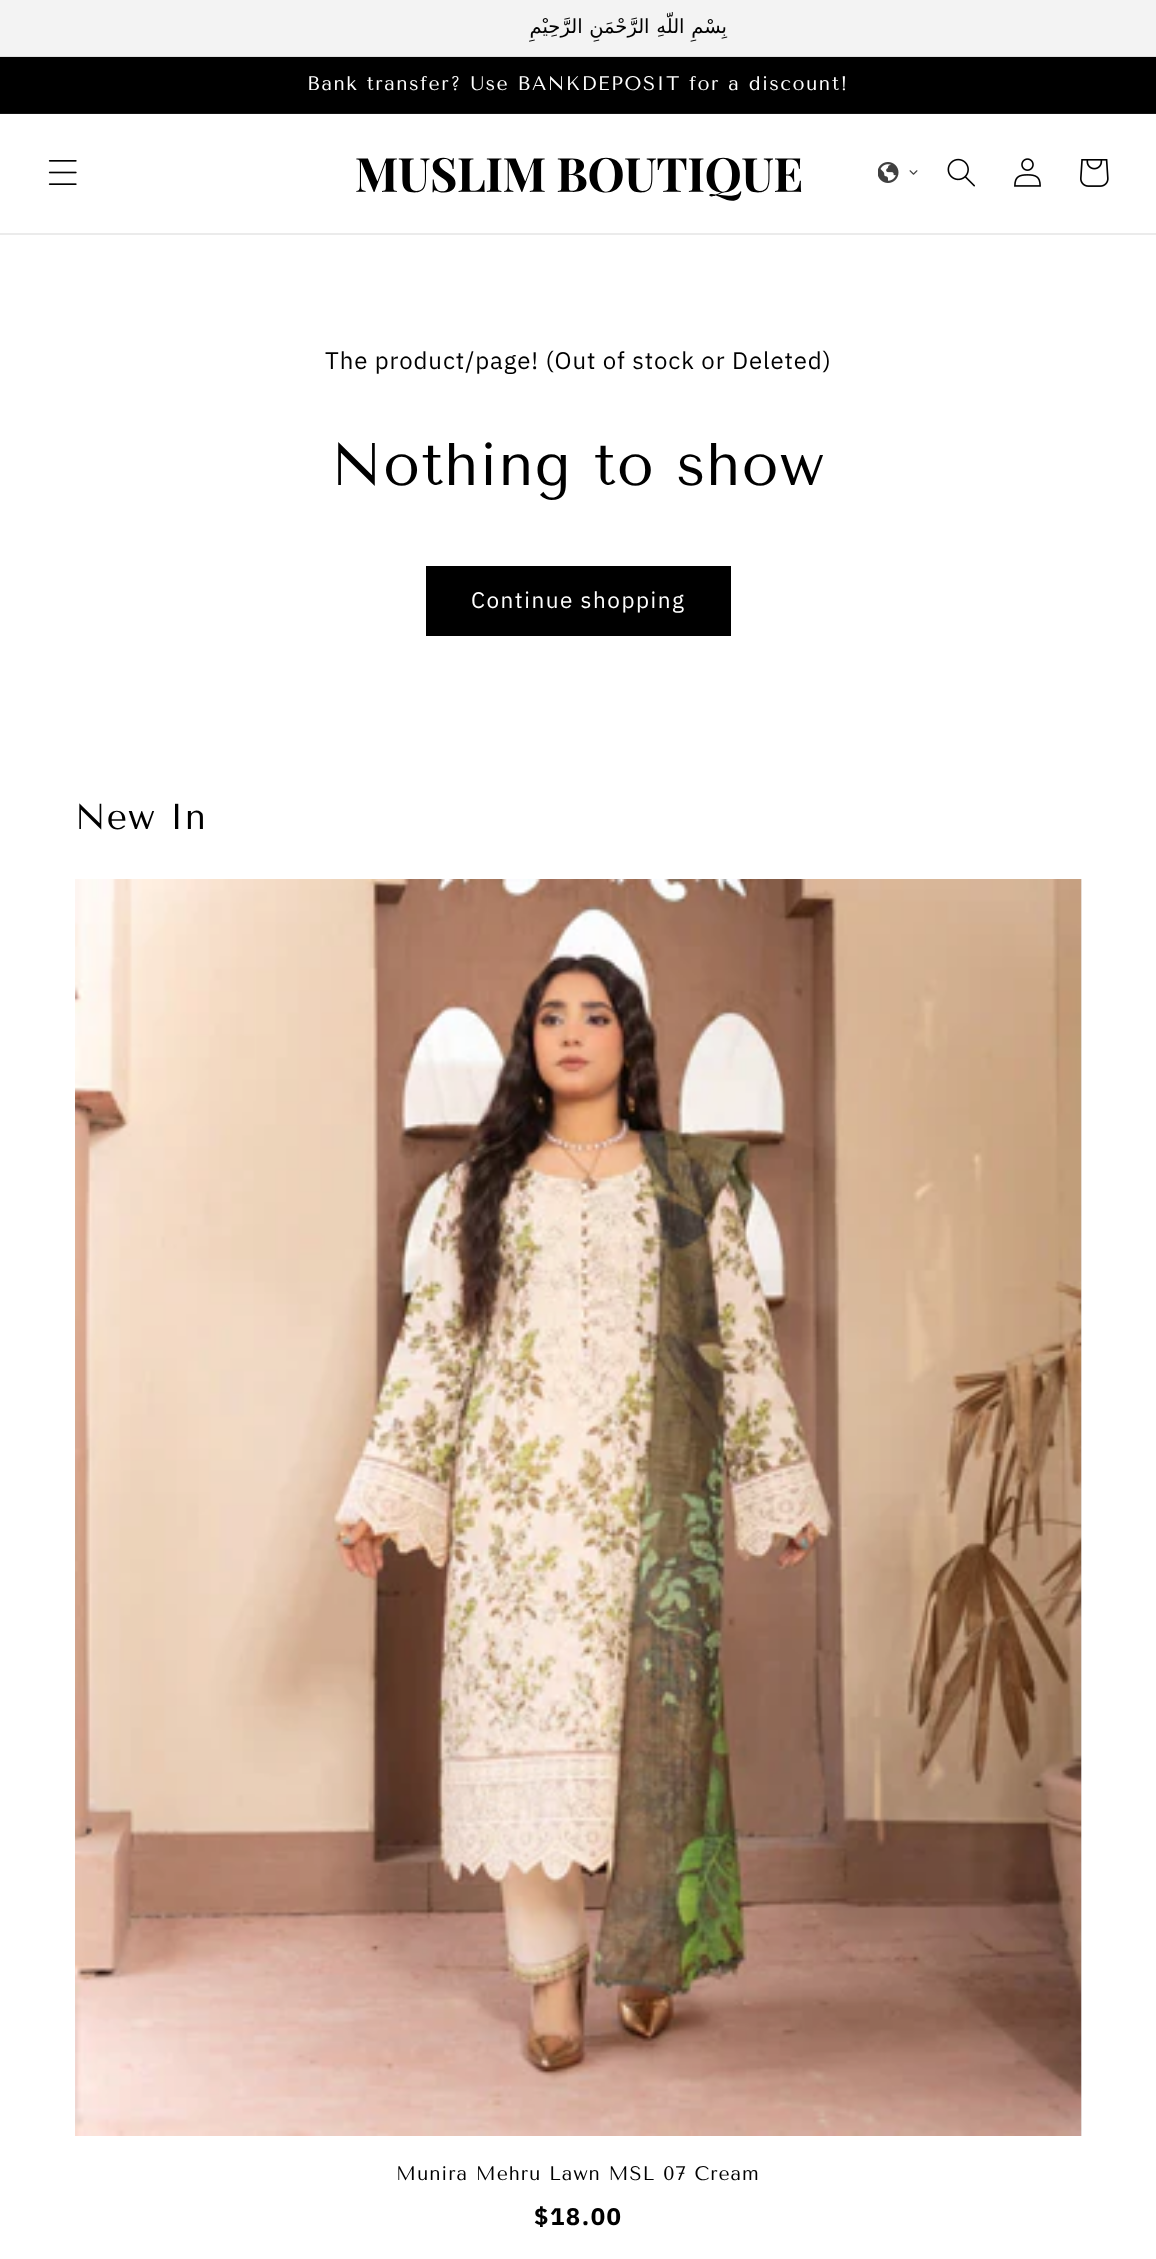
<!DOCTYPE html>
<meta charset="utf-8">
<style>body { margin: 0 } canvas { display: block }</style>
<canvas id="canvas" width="1156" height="2259"></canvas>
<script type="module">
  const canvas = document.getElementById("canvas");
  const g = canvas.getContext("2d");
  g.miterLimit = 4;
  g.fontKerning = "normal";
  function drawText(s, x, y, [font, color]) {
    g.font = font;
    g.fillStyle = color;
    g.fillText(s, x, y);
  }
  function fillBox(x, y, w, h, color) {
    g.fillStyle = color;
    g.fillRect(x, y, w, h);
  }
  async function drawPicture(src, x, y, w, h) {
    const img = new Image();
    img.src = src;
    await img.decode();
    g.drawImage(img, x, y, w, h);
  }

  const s1 = ["19.5px DejaVu Sans", "#000000"];
  const s2 = ["19.5px Tenor Sans", "#FFFFFF"];
  const s3 = ["24px IBM Plex Sans", "#000000"];
  const s4 = ["60px Tenor Sans", "#000000"];
  const s5 = ["22.5px IBM Plex Sans", "#FFFFFF"];
  const s6 = ["36px Tenor Sans", "#000000"];
  const s7 = ["19.5px Tenor Sans", "#000000"];
  const s8 = ["bold 24px IBM Plex Sans", "#000000"];

  fillBox(0, 0, 1156, 2259, "#FFFFFF");
  fillBox(0, 0, 1156, 56, "#F3F3F3");
  fillBox(0, 56, 1156, 1, "#E0E0E0");
  g.letterSpacing = "1.5px";
  g.wordSpacing = "-1px";
  g.direction = "rtl";
  drawText("بِسْمِ اللّهِ الرَّحْمَنِ الرَّحِيْمِ", 727, 33, s1);
  fillBox(0, 57, 1156, 56, "#000000");
  fillBox(0, 113, 1156, 1, "#141414");
  g.wordSpacing = "0px";
  g.direction = "ltr";
  drawText("Bank transfer? Use BANKDEPOSIT for a discount!", 307, 90, s2);
  fillBox(0, 233, 1156, 2, "#EBEBEB");
  await drawPicture("pic1.png", 48, 160, 29, 25);
  await drawPicture("pic2.png", 356, 157, 446, 44);
  await drawPicture("pic3.png", 878, 162, 21, 21);
  await drawPicture("pic4.png", 909, 170, 9, 5);
  await drawPicture("pic5.png", 947, 158, 28, 29);
  await drawPicture("pic6.png", 1014, 158, 27, 29);
  await drawPicture("pic7.png", 1080, 159, 29, 28);
  g.letterSpacing = "0.9px";
  drawText("The product/page! (Out of stock or Deleted)", 325, 369, s3);
  drawText("Nothing to show", 331, 485, s4);
  fillBox(426, 566, 305, 70, "#000000");
  g.letterSpacing = "1.5px";
  drawText("Continue shopping", 471, 608, s5);
  g.letterSpacing = "0.9px";
  drawText("New In", 75, 829, s6);
  fillBox(1081, 879, 1, 1257, "#F3F3F3");
  await drawPicture("pic8.png", 75, 879, 1007, 1257);
  drawText("Munira Mehru Lawn MSL 07 Cream", 396, 2180, s7);
  g.letterSpacing = "1.5px";
  drawText("$18.00", 534, 2225, s8);
</script>
